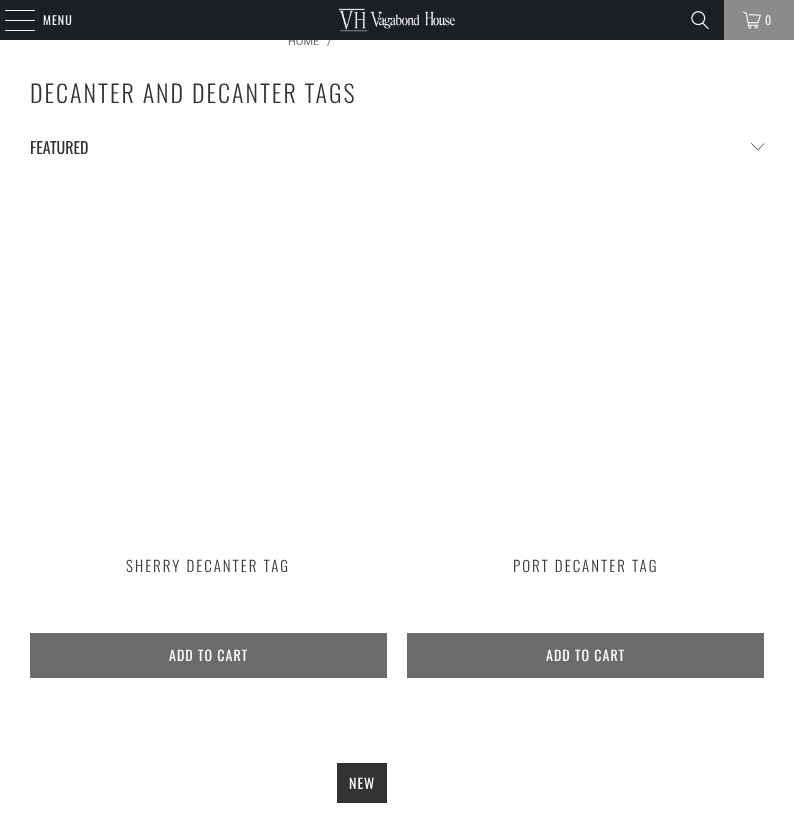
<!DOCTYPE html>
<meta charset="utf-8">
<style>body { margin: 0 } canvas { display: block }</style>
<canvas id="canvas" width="794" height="835"></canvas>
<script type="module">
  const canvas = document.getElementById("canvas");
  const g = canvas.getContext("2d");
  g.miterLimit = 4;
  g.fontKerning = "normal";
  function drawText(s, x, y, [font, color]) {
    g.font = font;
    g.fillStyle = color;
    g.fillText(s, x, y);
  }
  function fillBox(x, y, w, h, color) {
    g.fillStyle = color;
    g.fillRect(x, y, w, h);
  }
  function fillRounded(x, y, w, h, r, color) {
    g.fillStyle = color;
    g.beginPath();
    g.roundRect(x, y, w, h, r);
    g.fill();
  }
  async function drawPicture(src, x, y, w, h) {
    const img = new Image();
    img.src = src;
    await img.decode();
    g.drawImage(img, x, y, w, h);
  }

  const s1 = ["11px Roboto", "#6B6B6B"];
  const s2 = ["12px Oswald", "#F4F4F4"];
  const s3 = ["300 24px Oswald", "#333333"];
  const s4 = ["16px Oswald", "#333333"];
  const s5 = ["300 15px Oswald", "#333333"];
  const s6 = ["14px Oswald", "#FFFFFF"];

  fillBox(0, 0, 794, 835, "#FFFFFF");
  drawText("HOME", 288, 45, s1);
  drawText("/", 327, 45, s1);
  fillBox(0, 0, 724, 40, "#1B1F23");
  fillRounded(5, 10, 30, 1, 0.5, "#F4F4F4");
  fillRounded(5, 20, 30, 1, 0.5, "#F4F4F4");
  fillRounded(5, 30, 30, 1, 0.5, "#F4F4F4");
  g.letterSpacing = "1px";
  drawText("MENU", 43, 25, s2);
  await drawPicture("pic1.png", 339, 8, 116, 24);
  await drawPicture("pic2.png", 691, 11, 18, 19);
  fillBox(724, 0, 70, 40, "#8C8B8B");
  await drawPicture("pic3.png", 743, 11, 18, 18);
  drawText("0", 765, 25, s2);
  g.letterSpacing = "2px";
  drawText("DECANTER AND DECANTER TAGS", 30, 103, s3);
  await drawPicture("pic4.png", 751, 143, 13, 8);
  g.letterSpacing = "0px";
  drawText("FEATURED", 30, 154, s4);
  g.letterSpacing = "2px";
  drawText("SHERRY DECANTER TAG", 126, 572, s5);
  fillBox(30, 633, 357, 45, "#6B6B6B");
  g.letterSpacing = "1px";
  drawText("ADD TO CART", 169, 661, s6);
  g.letterSpacing = "2px";
  drawText("PORT DECANTER TAG", 513, 572, s5);
  fillBox(407, 633, 357, 45, "#6B6B6B");
  g.letterSpacing = "1px";
  drawText("ADD TO CART", 546, 661, s6);
  fillBox(337, 763, 50, 40, "#333333");
  drawText("NEW", 349, 789, s6);
</script>
